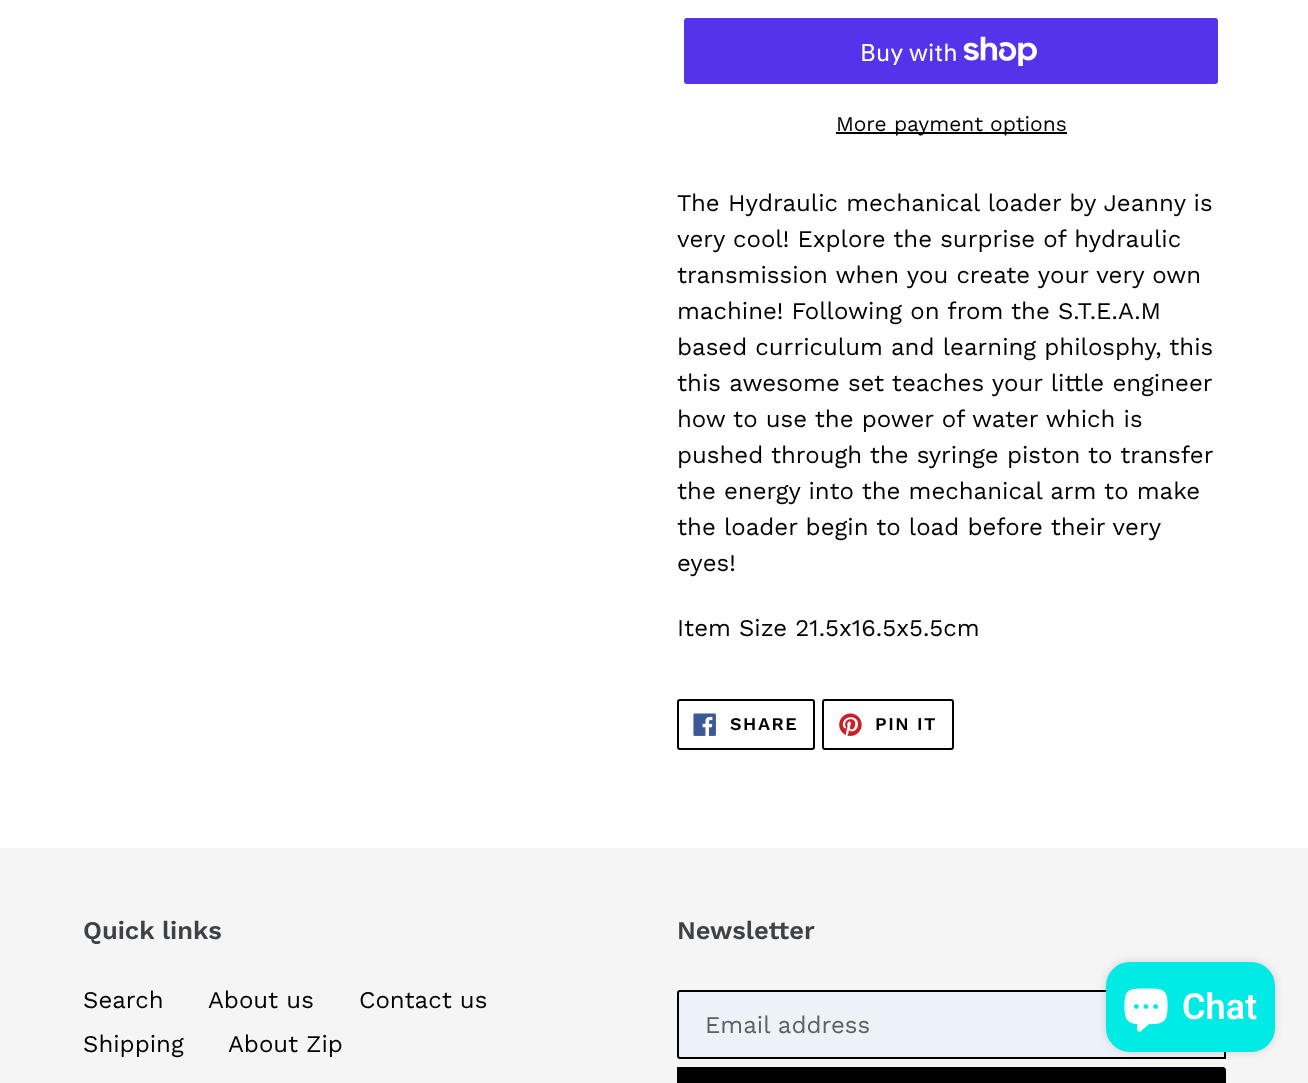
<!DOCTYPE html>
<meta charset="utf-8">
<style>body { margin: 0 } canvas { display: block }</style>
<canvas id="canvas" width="1308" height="1083"></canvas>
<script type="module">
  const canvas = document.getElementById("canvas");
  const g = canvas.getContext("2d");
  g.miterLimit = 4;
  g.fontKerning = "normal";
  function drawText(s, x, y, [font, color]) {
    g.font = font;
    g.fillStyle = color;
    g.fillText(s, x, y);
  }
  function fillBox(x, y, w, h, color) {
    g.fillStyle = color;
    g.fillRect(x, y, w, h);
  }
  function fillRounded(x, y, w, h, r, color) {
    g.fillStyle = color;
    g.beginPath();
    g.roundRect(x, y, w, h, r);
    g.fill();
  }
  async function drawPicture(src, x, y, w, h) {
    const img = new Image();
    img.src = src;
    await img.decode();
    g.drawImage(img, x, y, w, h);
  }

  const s1 = ["24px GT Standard", "#FFFFFF"];
  const s2 = ["21px Work Sans", "#000000"];
  const s3 = ["24px Work Sans", "#000000"];
  const s4 = ["600 18px Work Sans", "#000000"];
  const s5 = ["600 25.5px Work Sans", "#3D4246"];
  const s6 = ["24px Work Sans", "#5E6163"];
  const s7 = ["600 36px Roboto", "#FFFFFF"];

  fillBox(0, 0, 1308, 1083, "#FFFFFF");
  fillRounded(684, 18, 534, 66, 3, "#5433EB");
  drawText("Buy with", 860, 61, s1);
  await drawPicture("pic1.png", 963, 36, 74, 30);
  fillBox(836, 132, 231, 2, "#000000");
  drawText("More payment options", 836, 131, s2);
  drawText("The Hydraulic mechanical loader by Jeanny is", 677, 211, s3);
  drawText("very cool! Explore the surprise of hydraulic", 677, 247, s3);
  drawText("transmission when you create your very own", 677, 283, s3);
  drawText("machine! Following on from the S.T.E.A.M", 677, 319, s3);
  drawText("based curriculum and learning philosphy, this", 677, 355, s3);
  drawText("this awesome set teaches your little engineer", 677, 391, s3);
  drawText("how to use the power of water which is", 677, 427, s3);
  drawText("pushed through the syringe piston to transfer", 677, 463, s3);
  drawText("the energy into the mechanical arm to make", 677, 499, s3);
  drawText("the loader begin to load before their very", 677, 535, s3);
  drawText("eyes!", 677, 571, s3);
  drawText("Item Size 21.5x16.5x5.5cm", 677, 636, s3);
  g.beginPath();
  g.roundRect(678, 700, 136, 49, 2);
  g.strokeStyle = "#000000";
  g.lineWidth = 2;
  g.stroke();
  await drawPicture("pic2.png", 693, 713, 23, 23);
  g.letterSpacing = "1.5px";
  drawText("SHARE", 730, 730, s4);
  g.beginPath();
  g.roundRect(823, 700, 130, 49, 2);
  g.stroke();
  await drawPicture("pic3.png", 839, 713, 23, 23);
  drawText("PIN IT", 875, 730, s4);
  fillBox(0, 848, 1308, 235, "#F5F5F5");
  g.letterSpacing = "0px";
  drawText("Quick links", 83, 939, s5);
  drawText("Search", 83, 1008, s3);
  drawText("About us", 208, 1008, s3);
  drawText("Contact us", 359, 1008, s3);
  drawText("Shipping", 83, 1052, s3);
  drawText("About Zip", 228, 1052, s3);
  drawText("Newsletter", 677, 939, s5);
  g.fillStyle = "#ECF2F7";
  g.beginPath();
  g.roundRect(678, 991, 547, 67, [2, 0, 0, 2]);
  g.fill();
  g.stroke();
  drawText("Email address", 705, 1033, s6);
  g.fillStyle = "#000000";
  g.beginPath();
  g.moveTo(677, 1067);
  g.lineTo(1223, 1067);
  g.bezierCurveTo(1224.5, 1067, 1226, 1068.5, 1226, 1070);
  g.lineTo(1226, 1083);
  g.bezierCurveTo(1226, 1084.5, 1224.5, 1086, 1223, 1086);
  g.lineTo(677, 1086);
  g.closePath();
  g.fill();
  g.fillStyle = "rgba(0, 0, 0, 0.15)";
  g.filter = "blur(4px)";
  g.beginPath();
  g.roundRect(1106, 962, 169, 90, 24);
  g.fill();
  g.filter = "none";
  fillRounded(1106, 962, 169, 90, 24, "#00EAE6");
  await drawPicture("pic4.png", 1124, 988, 44, 44);
  drawText("Chat", 1182, 1019, s7);
</script>
